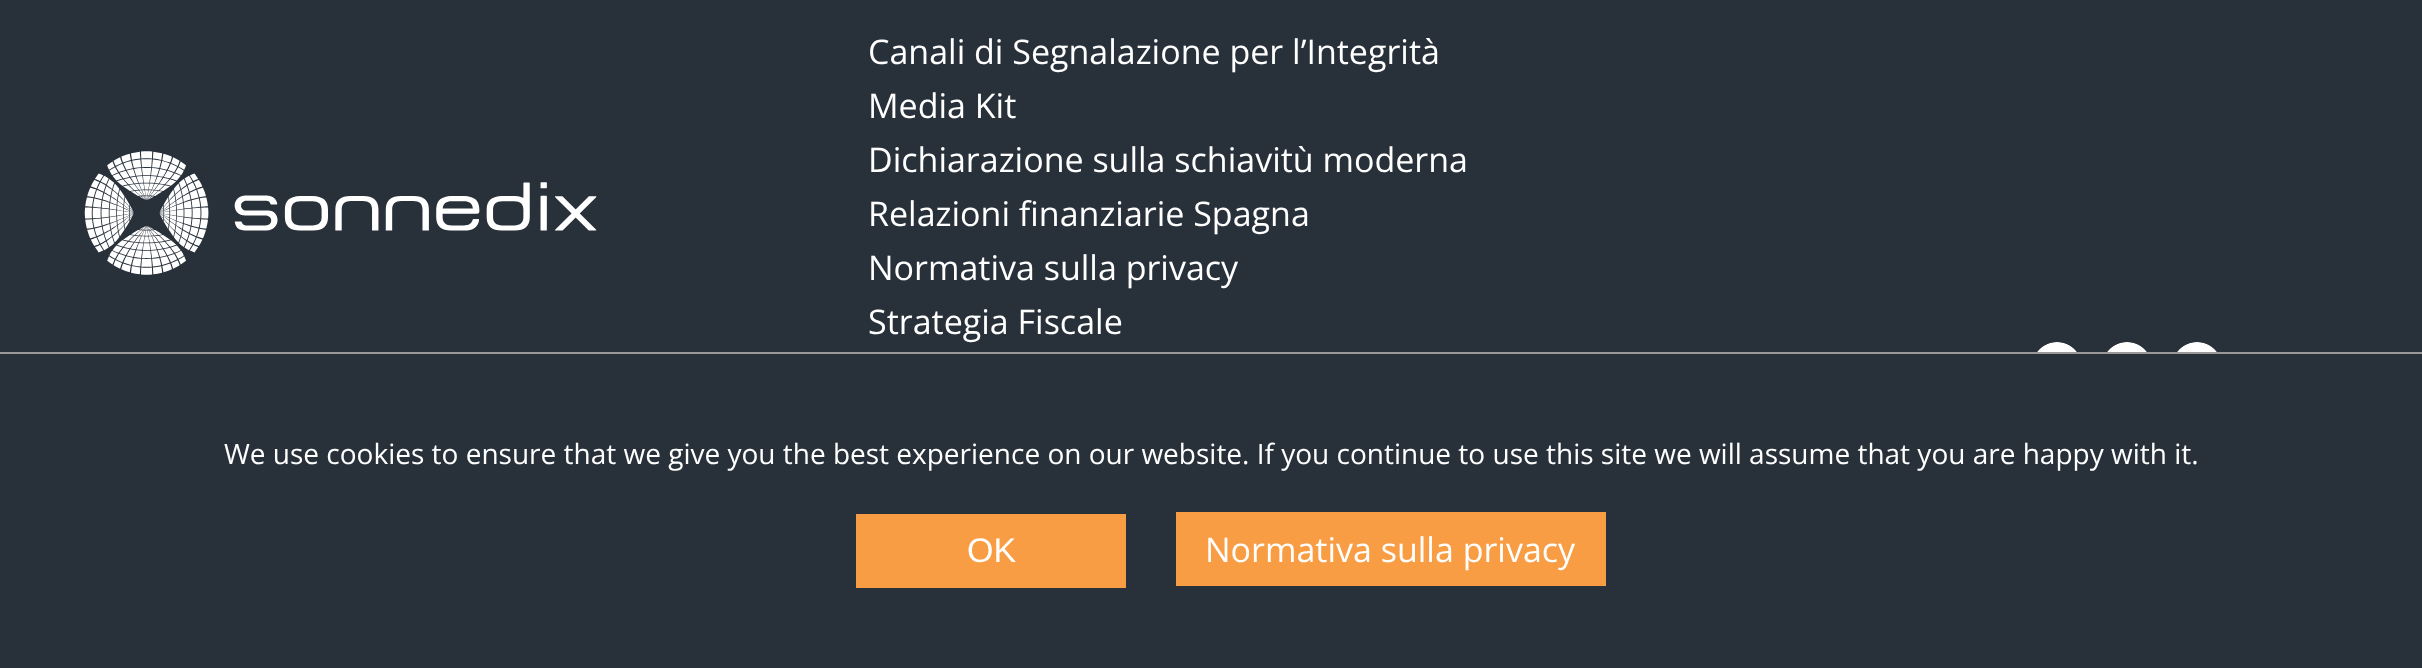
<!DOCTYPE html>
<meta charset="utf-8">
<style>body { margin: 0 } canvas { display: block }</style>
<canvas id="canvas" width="2422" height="668"></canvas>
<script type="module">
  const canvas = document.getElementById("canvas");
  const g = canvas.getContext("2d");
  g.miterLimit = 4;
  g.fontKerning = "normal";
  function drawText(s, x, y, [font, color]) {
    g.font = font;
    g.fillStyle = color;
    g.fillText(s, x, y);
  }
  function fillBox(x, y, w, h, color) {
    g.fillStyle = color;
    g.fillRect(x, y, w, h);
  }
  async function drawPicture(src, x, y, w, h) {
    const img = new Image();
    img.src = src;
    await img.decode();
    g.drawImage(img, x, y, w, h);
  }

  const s1 = ["34px Open Sans", "#FFFFFF"];
  const s2 = ["28px Open Sans", "#FFFFFF"];
  const s3 = ["34px Liberation Sans", "#FFFFFF"];

  fillBox(0, 0, 2422, 668, "#28313A");
  await drawPicture("pic1.png", 84, 151, 513, 124);
  drawText("Canali di Segnalazione per l’Integrità", 868, 64, s1);
  drawText("Media Kit", 868, 118, s1);
  drawText("Dichiarazione sulla schiavitù moderna", 868, 172, s1);
  drawText("Relazioni finanziarie Spagna", 868, 226, s1);
  drawText("Normativa sulla privacy", 868, 280, s1);
  drawText("Strategia Fiscale", 868, 334, s1);
  await drawPicture("pic2.png", 2037, 342, 40, 10);
  await drawPicture("pic3.png", 2107, 342, 40, 10);
  await drawPicture("pic2.png", 2177, 342, 40, 10);
  fillBox(0, 352, 2422, 2, "#999999");
  drawText("We use cookies to ensure that we give you the best experience on our website. If you continue to use this site we will assume that you are happy with it.", 224, 464, s2);
  fillBox(856, 514, 270, 74, "#F99D44");
  drawText("OK", 967, 562, s3);
  fillBox(1176, 512, 430, 74, "#F99D44");
  drawText("Normativa sulla privacy", 1205, 562, s1);
</script>
